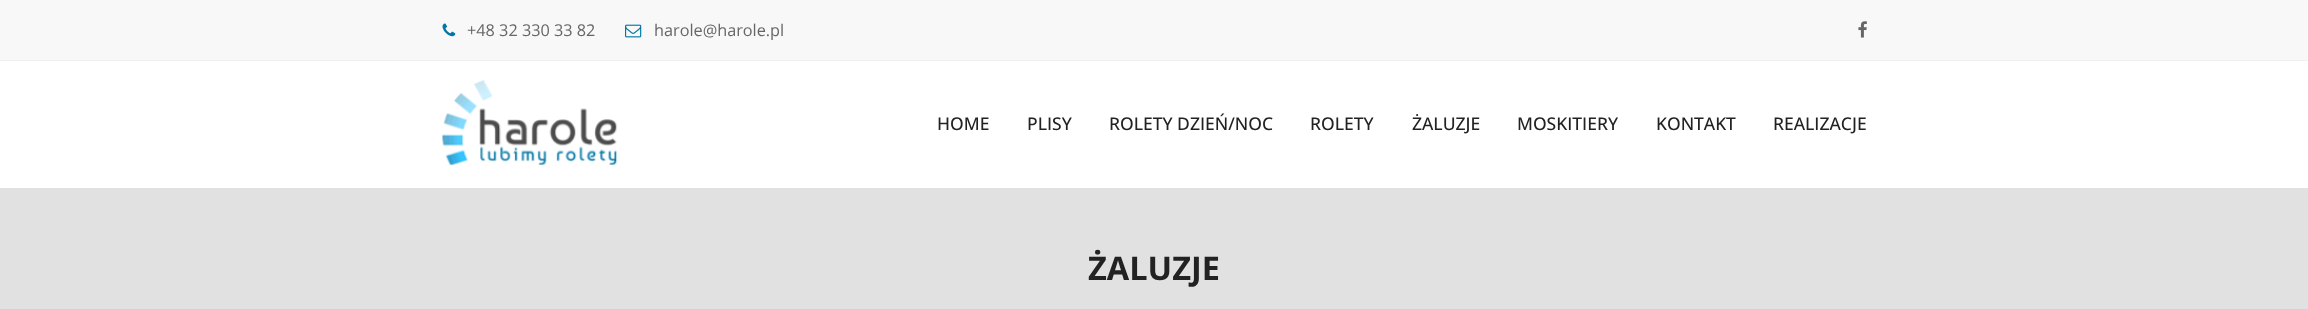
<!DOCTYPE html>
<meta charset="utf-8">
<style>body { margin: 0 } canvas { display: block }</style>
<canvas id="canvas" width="2308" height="309"></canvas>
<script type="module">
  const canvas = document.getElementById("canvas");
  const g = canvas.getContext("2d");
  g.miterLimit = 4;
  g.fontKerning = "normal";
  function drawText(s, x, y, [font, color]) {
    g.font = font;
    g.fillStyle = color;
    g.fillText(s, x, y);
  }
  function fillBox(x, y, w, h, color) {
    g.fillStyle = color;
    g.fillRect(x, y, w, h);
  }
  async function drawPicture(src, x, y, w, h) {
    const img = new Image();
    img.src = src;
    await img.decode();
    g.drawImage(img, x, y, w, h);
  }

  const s1 = ["16.25px Open Sans", "#666666"];
  const s2 = ["500 17.5px Open Sans", "#222222"];
  const s3 = ["bold 32.5px Open Sans", "#222222"];

  fillBox(0, 0, 2308, 309, "#FFFFFF");
  fillBox(0, 0, 2308, 60, "#F8F8F8");
  fillBox(0, 60, 2308, 1, "#F0F0F0");
  await drawPicture("pic1.png", 442, 23, 14, 14);
  drawText("+48 32 330 33 82", 467, 36, s1);
  await drawPicture("pic2.png", 625, 24, 17, 14);
  drawText("harole@harole.pl", 654, 36, s1);
  await drawPicture("pic3.png", 1858, 21, 9, 17);
  await drawPicture("pic4.png", 442, 80, 176, 85);
  drawText("HOME", 937, 130, s2);
  drawText("PLISY", 1027, 130, s2);
  drawText("ROLETY DZIEŃ/NOC", 1109, 130, s2);
  drawText("ROLETY", 1310, 130, s2);
  drawText("ŻALUZJE", 1412, 130, s2);
  drawText("MOSKITIERY", 1517, 130, s2);
  drawText("KONTAKT", 1656, 130, s2);
  drawText("REALIZACJE", 1773, 130, s2);
  fillBox(0, 188, 2308, 121, "#E1E1E1");
  drawText("ŻALUZJE", 1088, 280, s3);
</script>
